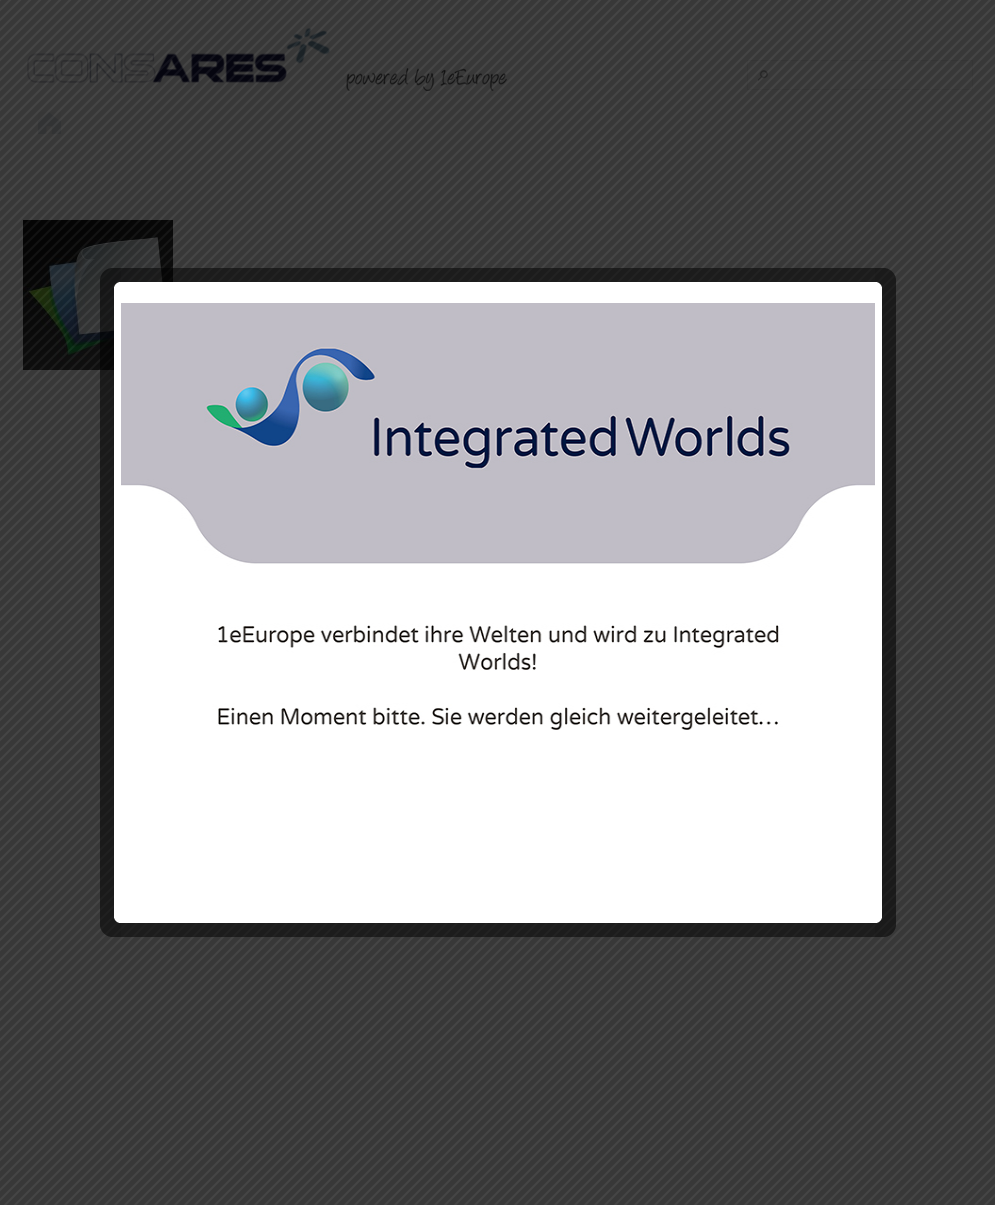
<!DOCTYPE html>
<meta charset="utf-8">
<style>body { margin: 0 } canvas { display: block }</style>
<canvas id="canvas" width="995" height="1205"></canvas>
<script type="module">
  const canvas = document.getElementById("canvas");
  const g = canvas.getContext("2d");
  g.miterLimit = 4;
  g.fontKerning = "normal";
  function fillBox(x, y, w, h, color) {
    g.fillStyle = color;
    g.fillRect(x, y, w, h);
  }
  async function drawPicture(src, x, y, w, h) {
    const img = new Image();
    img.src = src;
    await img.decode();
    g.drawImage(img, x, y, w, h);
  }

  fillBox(0, 0, 995, 1205, "#FFFFFF");
  await drawPicture("pic2.png", 27, 28, 480, 63);
  g.strokeStyle = "#EFEFEF";
  g.strokeRect(747.5, 60.5, 225, 29);
  await drawPicture("pic3.png", 758, 70, 10, 11);
  await drawPicture("pic4.png", 38, 112, 23, 22);
  await drawPicture("pic5.png", 23, 220, 150, 150);
  await drawPicture("pic1.png", 0, 0, 995, 1205);
  await drawPicture("pic6.png", 100, 268, 21, 21);
  await drawPicture("pic7.png", 121, 268, 754, 21);
  await drawPicture("pic8.png", 875, 268, 21, 21);
  await drawPicture("pic9.png", 100, 289, 21, 627);
  fillBox(121, 289, 754, 627, "#FFFFFF");
  await drawPicture("pic10.png", 121, 303, 754, 427);
  await drawPicture("pic11.png", 875, 289, 21, 627);
  await drawPicture("pic12.png", 100, 916, 21, 21);
  await drawPicture("pic13.png", 121, 916, 754, 21);
  await drawPicture("pic14.png", 875, 916, 21, 21);
</script>
